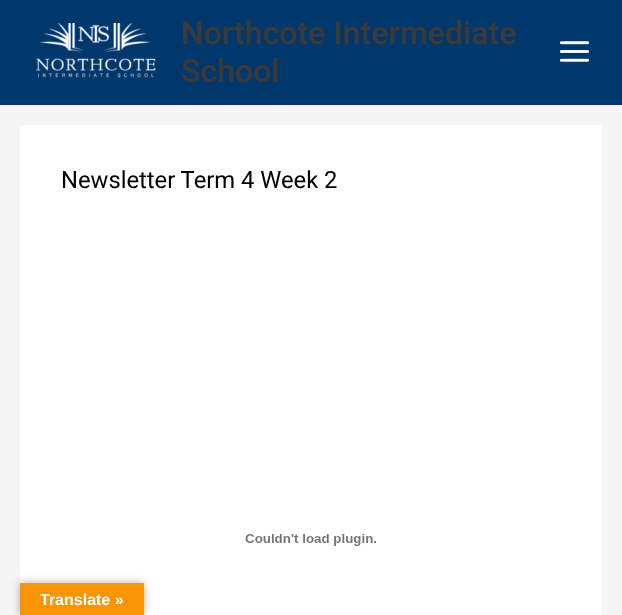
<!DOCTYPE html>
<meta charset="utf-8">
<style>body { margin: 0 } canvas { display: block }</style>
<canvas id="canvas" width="622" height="615"></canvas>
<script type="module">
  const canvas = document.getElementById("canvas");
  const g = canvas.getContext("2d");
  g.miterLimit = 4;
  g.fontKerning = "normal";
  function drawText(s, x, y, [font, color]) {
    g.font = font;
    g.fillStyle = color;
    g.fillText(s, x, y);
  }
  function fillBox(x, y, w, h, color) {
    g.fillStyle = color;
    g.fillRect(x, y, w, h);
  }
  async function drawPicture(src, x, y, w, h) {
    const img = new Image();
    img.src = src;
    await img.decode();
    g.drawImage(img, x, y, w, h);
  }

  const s1 = ["600 32px Roboto", "#3A3A3A"];
  const s2 = ["23.75px Roboto", "#000000"];
  const s3 = ["bold 16px Liberation Sans", "#FFFFFF"];

  fillBox(0, 0, 622, 615, "#F5F5F5");
  fillBox(0, 0, 622, 105, "#00376D");
  await drawPicture("pic1.png", 36, 23, 120, 55);
  drawText("Northcote Intermediate", 181, 44, s1);
  drawText("School", 181, 82, s1);
  await drawPicture("pic2.png", 559, 41, 31, 21);
  fillBox(20, 125, 582, 490, "#FFFFFF");
  drawText("Newsletter Term 4 Week 2", 61, 188, s2);
  await drawPicture("pic3.png", 245, 534, 131, 12);
  g.fillStyle = "rgba(0, 0, 0, 0.3)";
  g.filter = "blur(4.5px)";
  g.beginPath();
  g.rect(20, 583, 124, 32);
  g.fill();
  g.filter = "none";
  fillBox(20, 583, 124, 32, "#F89406");
  drawText("Translate »", 40, 605, s3);
</script>
